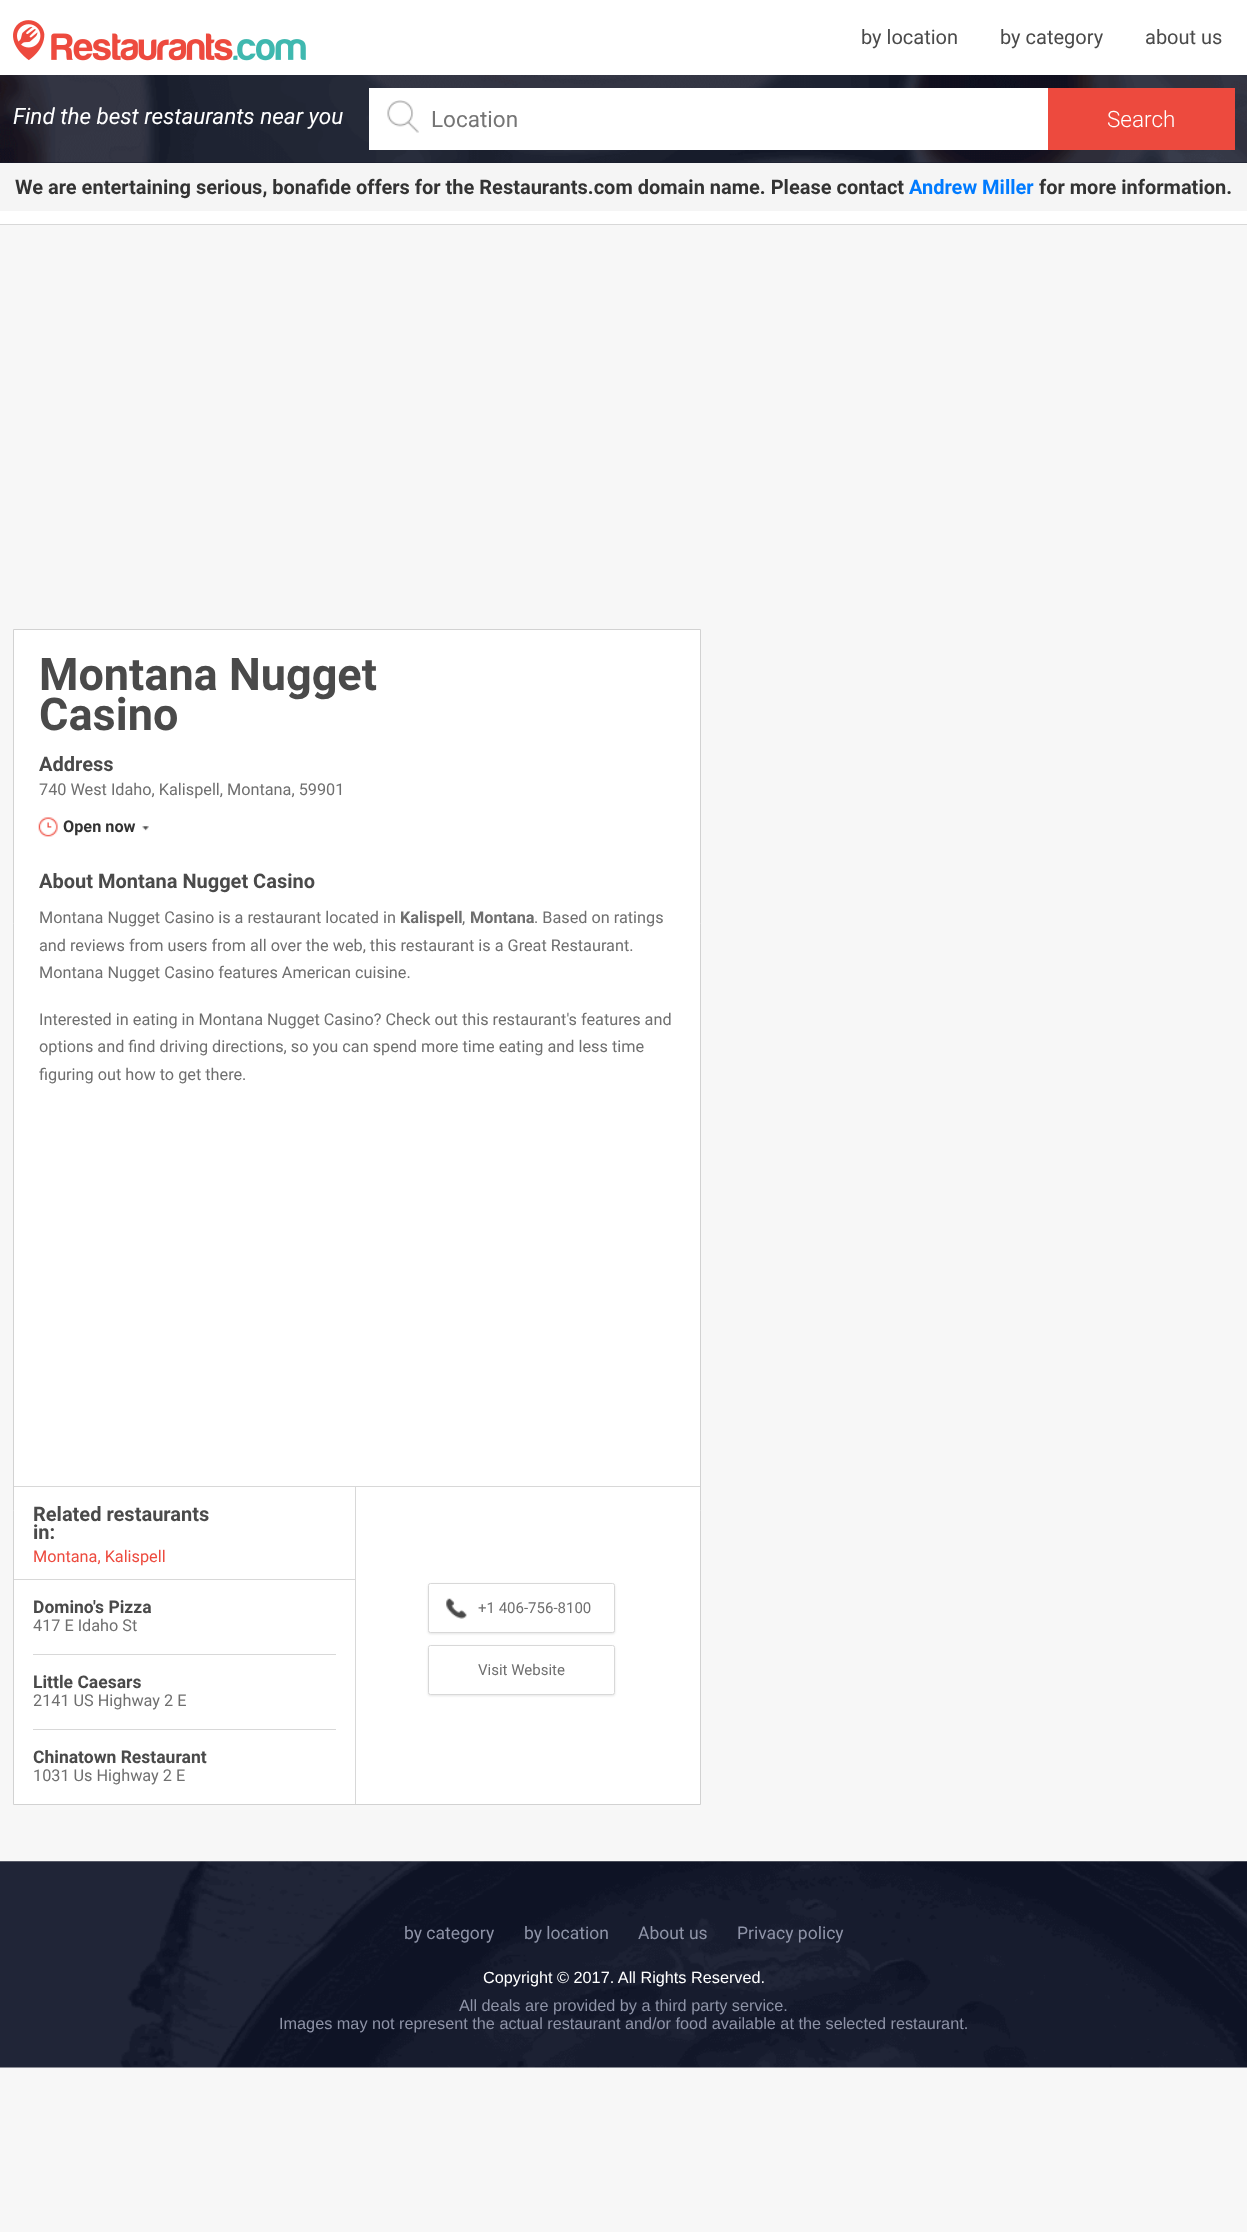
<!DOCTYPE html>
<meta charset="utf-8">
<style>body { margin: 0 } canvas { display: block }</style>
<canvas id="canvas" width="1247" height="2232"></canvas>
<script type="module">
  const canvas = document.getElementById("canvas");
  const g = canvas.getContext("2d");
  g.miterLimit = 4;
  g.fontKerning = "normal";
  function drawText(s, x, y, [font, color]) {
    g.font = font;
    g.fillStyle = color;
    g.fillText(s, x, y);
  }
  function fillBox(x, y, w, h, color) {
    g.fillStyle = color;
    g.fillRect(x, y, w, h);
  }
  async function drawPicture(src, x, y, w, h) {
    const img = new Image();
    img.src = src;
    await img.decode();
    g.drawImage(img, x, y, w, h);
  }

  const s1 = ["20px Roboto", "#4A4A4A"];
  const s2 = ["italic 22.5px Roboto", "#FFFFFF"];
  const s3 = ["22.5px Roboto", "#757575"];
  const s4 = ["300 22.5px Roboto", "#FFFFFF"];
  const s5 = ["bold 20px Roboto", "#333333"];
  const s6 = ["bold 20px Roboto", "#007BFF"];
  const s7 = ["bold 45px Roboto", "#4A4A4A"];
  const s8 = ["bold 20px Roboto", "#4A4A4A"];
  const s9 = ["16.25px Roboto", "#6F6F6F"];
  const s10 = ["bold 16.25px Roboto", "#333333"];
  const s11 = ["bold 16.25px Roboto", "#6F6F6F"];
  const s12 = ["16.25px Roboto", "#ED4A3E"];
  const s13 = ["bold 17.5px Roboto", "#4A4A4A"];
  const s14 = ["15px Roboto", "#6F6F6F"];
  const s15 = ["17.5px Roboto", "#8E93A7"];
  const s16 = ["16.25px Liberation Sans", "#FFFFFF"];
  const s17 = ["16.25px Liberation Sans", "#8E93A7"];

  fillBox(0, 0, 1247, 2232, "#F7F7F7");
  fillBox(0, 0, 1247, 224, "#FFFFFF");
  fillBox(0, 224, 1247, 1, "#D8D8D8");
  await drawPicture("pic1.png", 13, 20, 293, 41);
  drawText("by location", 861, 44, s1);
  drawText("by category", 1000, 44, s1);
  drawText("about us", 1145, 44, s1);
  fillBox(0, 162, 1247, 1, "#181C2D");
  await drawPicture("pic2.png", 0, 75, 1247, 88);
  drawText("Find the best restaurants near you", 13, 124, s2);
  fillBox(369, 88, 679, 62, "#FFFFFF");
  await drawPicture("pic3.png", 387, 100, 32, 33);
  drawText("Location", 431, 127, s3);
  fillBox(1048, 88, 187, 62, "#ED4A3E");
  drawText("Search", 1107, 127, s4);
  fillBox(0, 163, 1247, 48, "#F5F5F5");
  drawText("We are entertaining serious, bonafide offers for the Restaurants.com domain name. Please contact", 15, 194, s5);
  drawText("Andrew Miller", 909, 194, s6);
  drawText("for more information.", 1039, 194, s5);
  g.fillStyle = "#FFFFFF";
  g.beginPath();
  g.rect(13.5, 629.5, 687, 1175);
  g.fill();
  g.strokeStyle = "#D2D2D2";
  g.stroke();
  drawText("Montana Nugget", 39, 690, s7);
  drawText("Casino", 39, 730, s7);
  drawText("Address", 39, 771, s8);
  drawText("740 West Idaho, Kalispell, Montana, 59901", 39, 795, s9);
  await drawPicture("pic4.png", 38, 817, 20, 20);
  drawText("Open now", 63, 832, s10);
  await drawPicture("pic5.png", 142, 826, 7, 5);
  drawText("About Montana Nugget Casino", 39, 888, s8);
  drawText("Montana Nugget Casino is a restaurant located in", 39, 923, s9);
  drawText("Kalispell", 400, 923, s11);
  drawText(",", 462, 923, s9);
  drawText("Montana", 470, 923, s11);
  drawText(". Based on ratings", 534, 923, s9);
  drawText("and reviews from users from all over the web, this restaurant is a Great Restaurant.", 39, 951, s9);
  drawText("Montana Nugget Casino features American cuisine.", 39, 978, s9);
  drawText("Interested in eating in Montana Nugget Casino? Check out this restaurant's features and", 39, 1025, s9);
  drawText("options and find driving directions, so you can spend more time eating and less time", 39, 1052, s9);
  drawText("figuring out how to get there.", 39, 1080, s9);
  fillBox(14, 1486, 686, 1, "#D8D8D8");
  fillBox(355, 1486, 1, 318, "#D8D8D8");
  fillBox(14, 1579, 341, 1, "#D8D8D8");
  drawText("Related restaurants", 33, 1521, s8);
  drawText("in:", 33, 1539, s8);
  drawText("Montana, Kalispell", 33, 1562, s12);
  fillBox(33, 1654, 303, 1, "#D8D8D8");
  drawText("Domino's Pizza", 33, 1613, s13);
  drawText("417 E Idaho St", 33, 1631, s9);
  fillBox(33, 1729, 303, 1, "#D8D8D8");
  drawText("Little Caesars", 33, 1688, s13);
  drawText("2141 US Highway 2 E", 33, 1706, s9);
  drawText("Chinatown Restaurant", 33, 1763, s13);
  drawText("1031 Us Highway 2 E", 33, 1781, s9);
  g.fillStyle = "rgba(0, 0, 0, 0.1)";
  g.filter = "blur(1px)";
  g.beginPath();
  g.roundRect(428, 1584, 187, 50, 2.5);
  g.fill();
  g.filter = "none";
  g.fillStyle = "#FFFFFF";
  g.beginPath();
  g.roundRect(428.5, 1583.5, 186, 49, 2);
  g.fill();
  g.strokeStyle = "#D8D8D8";
  g.stroke();
  await drawPicture("pic6.png", 446, 1598, 21, 21);
  drawText("+1 406-756-8100", 478, 1613, s14);
  g.fillStyle = "rgba(0, 0, 0, 0.1)";
  g.filter = "blur(1px)";
  g.beginPath();
  g.roundRect(428, 1646, 187, 50, 2.5);
  g.fill();
  g.filter = "none";
  g.fillStyle = "#FFFFFF";
  g.beginPath();
  g.roundRect(428.5, 1645.5, 186, 49, 2);
  g.fill();
  g.stroke();
  drawText("Visit Website", 478, 1675, s14);
  await drawPicture("pic7.png", 0, 1861, 1247, 207);
  drawText("by category", 404, 1939, s15);
  drawText("by location", 524, 1939, s15);
  drawText("About us", 638, 1939, s15);
  drawText("Privacy policy", 737, 1939, s15);
  drawText("Copyright © 2017. All Rights Reserved.", 483, 1983, s16);
  drawText("All deals are provided by a third party service.", 459, 2011, s17);
  drawText("Images may not represent the actual restaurant and/or food available at the selected restaurant.", 279, 2029, s17);
</script>
